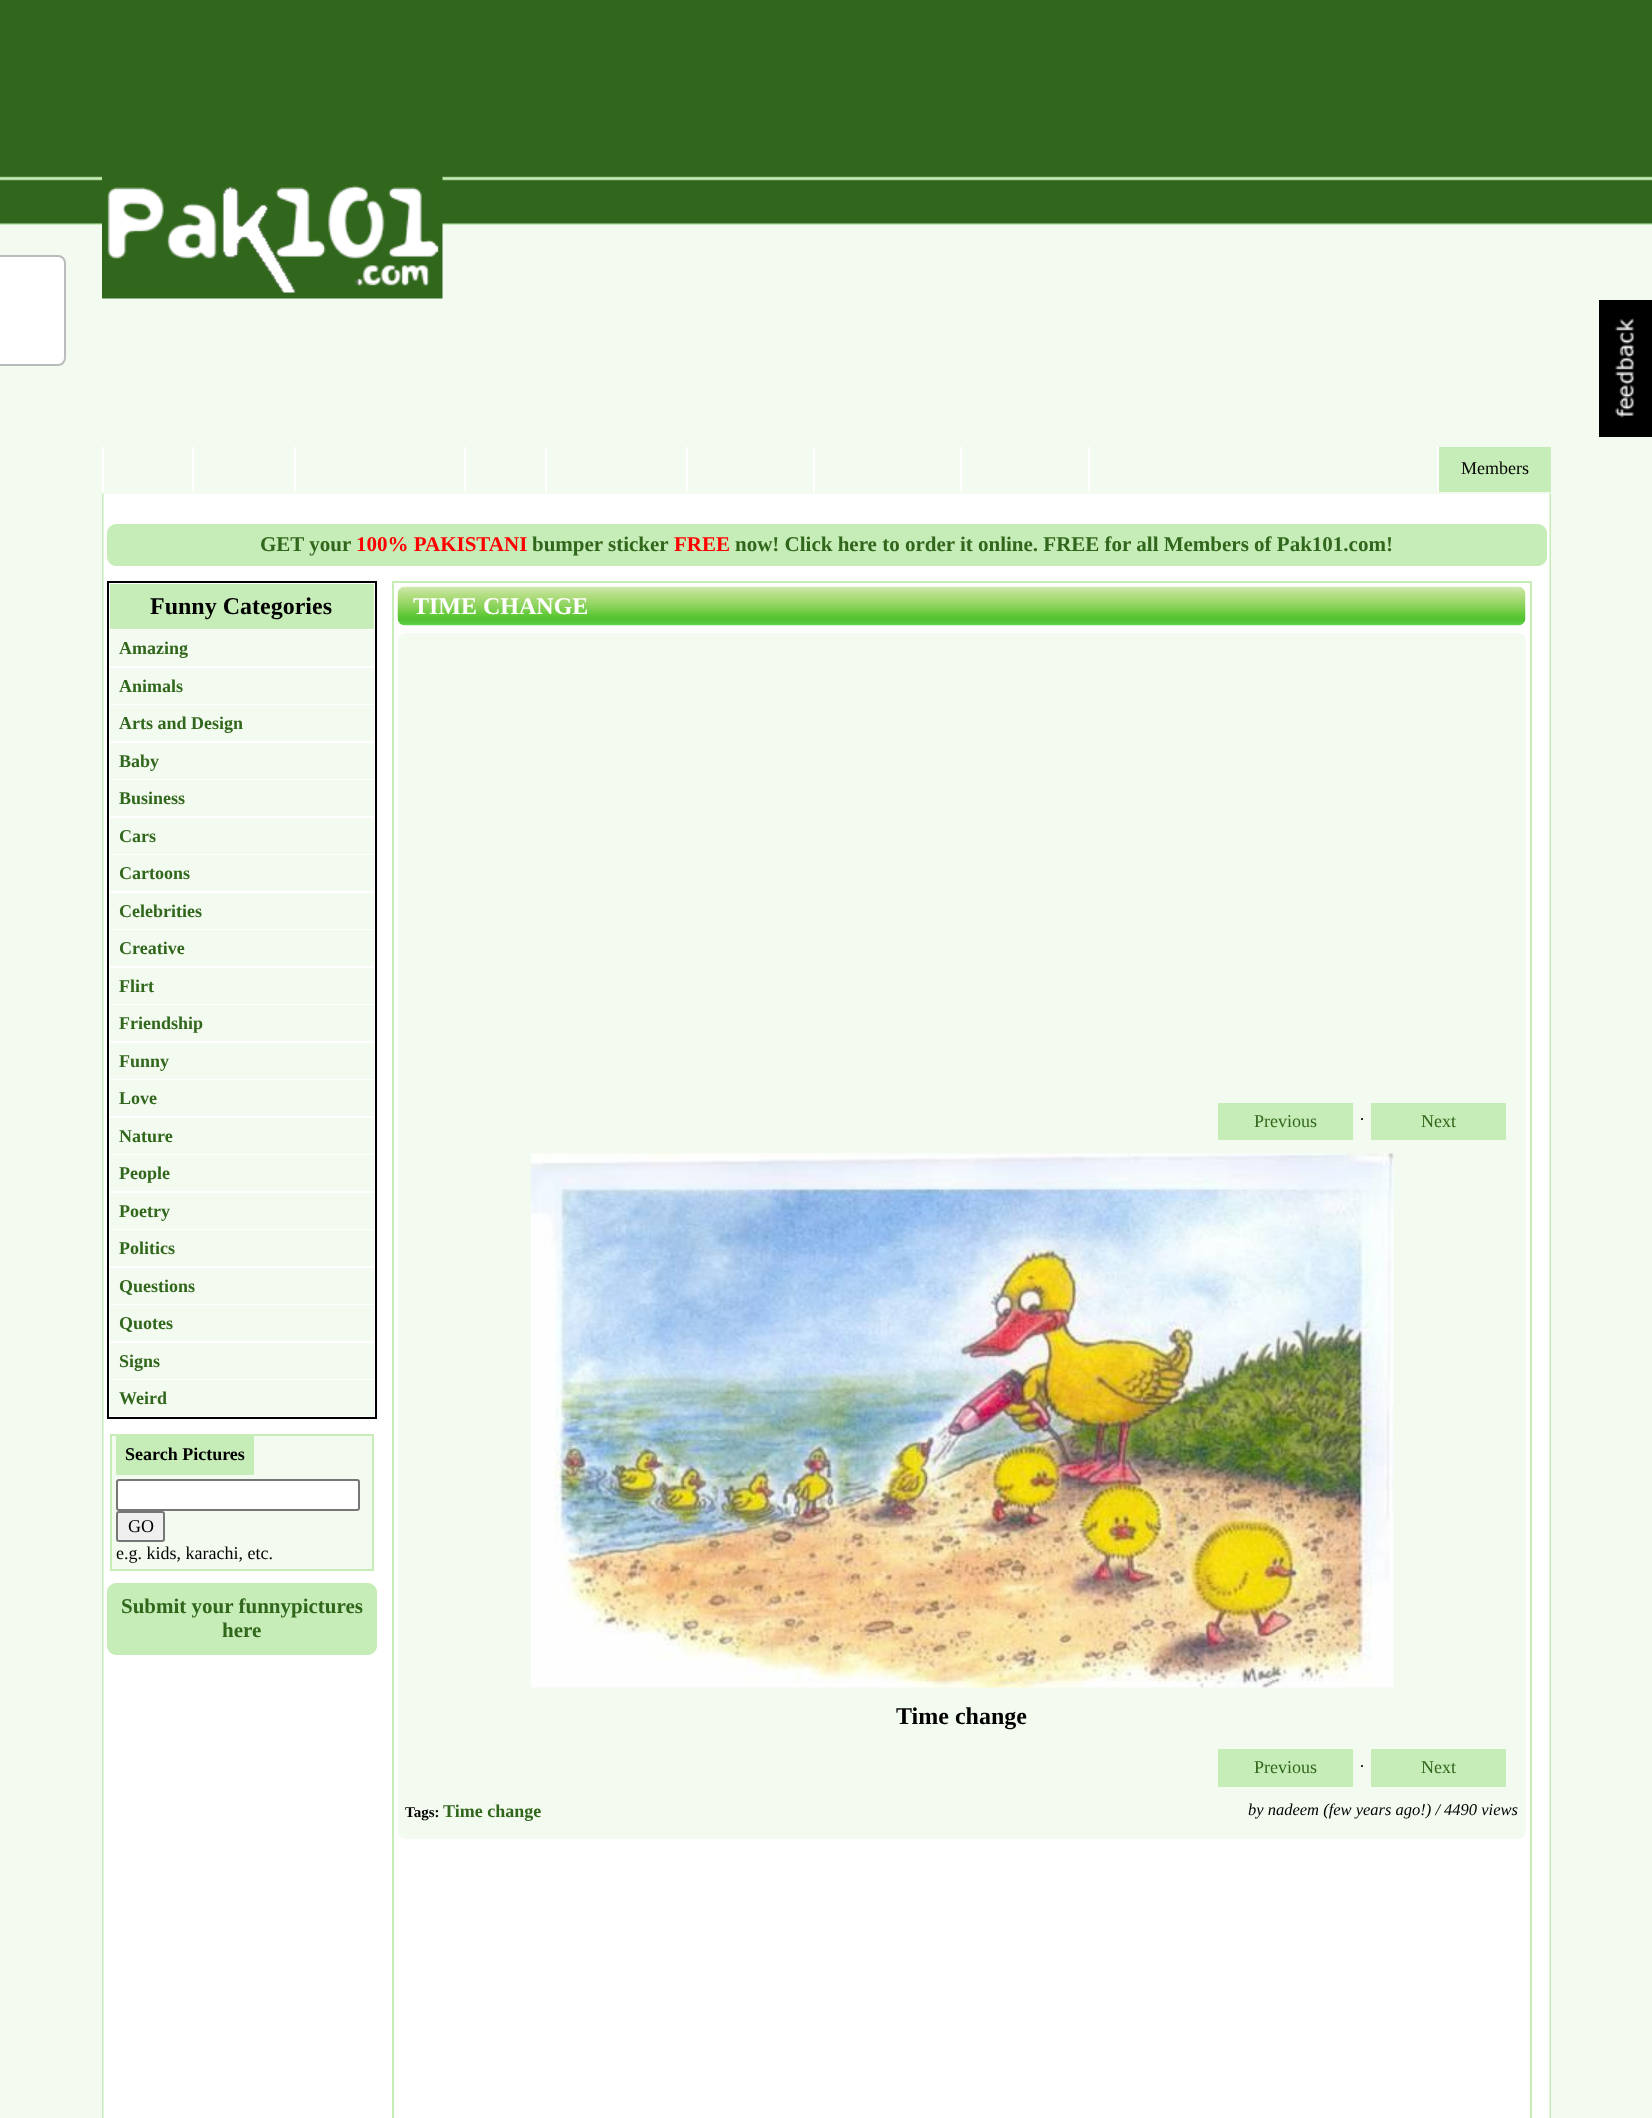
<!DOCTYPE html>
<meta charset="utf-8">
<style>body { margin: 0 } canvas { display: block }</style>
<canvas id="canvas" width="1652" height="2118"></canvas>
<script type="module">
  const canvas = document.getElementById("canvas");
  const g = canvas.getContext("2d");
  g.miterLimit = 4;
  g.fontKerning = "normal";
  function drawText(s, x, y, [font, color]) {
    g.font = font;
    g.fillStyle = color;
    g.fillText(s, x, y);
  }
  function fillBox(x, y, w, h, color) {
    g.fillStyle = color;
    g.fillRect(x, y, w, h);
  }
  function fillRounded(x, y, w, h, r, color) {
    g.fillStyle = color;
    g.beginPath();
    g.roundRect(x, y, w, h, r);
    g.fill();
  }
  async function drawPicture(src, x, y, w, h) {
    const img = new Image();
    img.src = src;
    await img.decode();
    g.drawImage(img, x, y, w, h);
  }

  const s1 = ["18px Liberation Serif", "#000000"];
  const s2 = ["bold 21px Liberation Serif", "#31671C"];
  const s3 = ["bold 21px Liberation Serif", "#FF0000"];
  const s4 = ["bold 24px Liberation Serif", "#000000"];
  const s5 = ["bold 18px Liberation Serif", "#31671C"];
  const s6 = ["bold 18px Liberation Serif", "#000000"];
  const s7 = ["bold 24px Liberation Serif", "#FFFFFF"];
  const s8 = ["18px Liberation Serif", "#31671C"];
  const s9 = ["bold 15px Liberation Serif", "#000000"];
  const s10 = ["italic 16.5px Liberation Serif", "#000000"];

  fillBox(0, 0, 1652, 2118, "#F3FAEF");
  await drawPicture("pic1.png", 0, 0, 1652, 225);
  g.fillStyle = "#FFFFFF";
  g.beginPath();
  g.roundRect(-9, 256, 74, 109, 7);
  g.fill();
  g.strokeStyle = "#BBBBBB";
  g.lineWidth = 2;
  g.stroke();
  fillBox(1599, 300, 53, 137, "#000000");
  await drawPicture("pic2.png", 1615, 318, 19, 100);
  await drawPicture("pic3.png", 102, 176, 341, 123);
  fillBox(102, 447, 2, 45, "#FFFFFF");
  fillBox(192, 447, 2, 45, "#FFFFFF");
  fillBox(294, 447, 2, 45, "#FFFFFF");
  fillBox(464, 447, 2, 45, "#FFFFFF");
  fillBox(545, 447, 2, 45, "#FFFFFF");
  fillBox(686, 447, 2, 45, "#FFFFFF");
  fillBox(813, 447, 2, 45, "#FFFFFF");
  fillBox(960, 447, 2, 45, "#FFFFFF");
  fillBox(1088, 447, 2, 45, "#FFFFFF");
  fillBox(1439, 447, 112, 45, "#C6ECB7");
  fillBox(1437, 447, 2, 45, "#FFFFFF");
  drawText("Members", 1461, 474, s1);
  fillBox(103, 494, 1447, 1624, "#FFFFFF");
  await drawPicture("pic4.png", 102, 493, 1449, 1625);
  g.fillStyle = "#C6ECB7";
  g.beginPath();
  g.roundRect(108, 525, 1438, 40, 8);
  g.fill();
  g.strokeStyle = "#C6ECB7";
  g.stroke();
  drawText("GET your", 260, 551, s2);
  drawText("100% PAKISTANI", 356, 551, s3);
  drawText("bumper sticker", 532, 551, s2);
  drawText("FREE", 674, 551, s3);
  drawText("now! Click here to order it online. FREE for all Members of Pak101.com!", 735, 551, s2);
  g.strokeStyle = "#000000";
  g.strokeRect(108, 582, 268, 836);
  fillBox(110, 584, 264, 45, "#C6ECB7");
  drawText("Funny Categories", 150, 614, s4);
  fillBox(110, 630, 264, 36, "#F3FAEF");
  drawText("Amazing", 119, 654, s5);
  fillBox(110, 668, 264, 36, "#F3FAEF");
  drawText("Animals", 119, 692, s5);
  fillBox(110, 705, 264, 36, "#F3FAEF");
  drawText("Arts and Design", 119, 729, s5);
  fillBox(110, 743, 264, 36, "#F3FAEF");
  drawText("Baby", 119, 767, s5);
  fillBox(110, 780, 264, 36, "#F3FAEF");
  drawText("Business", 119, 804, s5);
  fillBox(110, 818, 264, 36, "#F3FAEF");
  drawText("Cars", 119, 842, s5);
  fillBox(110, 855, 264, 36, "#F3FAEF");
  drawText("Cartoons", 119, 879, s5);
  fillBox(110, 893, 264, 36, "#F3FAEF");
  drawText("Celebrities", 119, 917, s5);
  fillBox(110, 930, 264, 36, "#F3FAEF");
  drawText("Creative", 119, 954, s5);
  fillBox(110, 968, 264, 36, "#F3FAEF");
  drawText("Flirt", 119, 992, s5);
  fillBox(110, 1005, 264, 36, "#F3FAEF");
  drawText("Friendship", 119, 1029, s5);
  fillBox(110, 1043, 264, 36, "#F3FAEF");
  drawText("Funny", 119, 1067, s5);
  fillBox(110, 1080, 264, 36, "#F3FAEF");
  drawText("Love", 119, 1104, s5);
  fillBox(110, 1118, 264, 36, "#F3FAEF");
  drawText("Nature", 119, 1142, s5);
  fillBox(110, 1155, 264, 36, "#F3FAEF");
  drawText("People", 119, 1179, s5);
  fillBox(110, 1193, 264, 36, "#F3FAEF");
  drawText("Poetry", 119, 1217, s5);
  fillBox(110, 1230, 264, 36, "#F3FAEF");
  drawText("Politics", 119, 1254, s5);
  fillBox(110, 1268, 264, 36, "#F3FAEF");
  drawText("Questions", 119, 1292, s5);
  fillBox(110, 1305, 264, 36, "#F3FAEF");
  drawText("Quotes", 119, 1329, s5);
  fillBox(110, 1343, 264, 36, "#F3FAEF");
  drawText("Signs", 119, 1367, s5);
  fillBox(110, 1380, 264, 36, "#F3FAEF");
  drawText("Weird", 119, 1404, s5);
  g.fillStyle = "#F3FAEF";
  g.beginPath();
  g.rect(111, 1435, 262, 135);
  g.fill();
  g.strokeStyle = "#C6ECB7";
  g.stroke();
  fillBox(116, 1436, 138, 39, "#C6ECB7");
  drawText("Search Pictures", 125, 1460, s6);
  g.fillStyle = "#FFFFFF";
  g.beginPath();
  g.roundRect(117, 1480, 242, 30, 2);
  g.fill();
  g.strokeStyle = "#767676";
  g.stroke();
  g.fillStyle = "#EFEFEF";
  g.beginPath();
  g.roundRect(117, 1512, 47, 29, 2);
  g.fill();
  g.stroke();
  drawText("GO", 128, 1532, s1);
  drawText("e.g. kids, karachi, etc.", 116, 1559, s1);
  g.fillStyle = "#C6ECB7";
  g.beginPath();
  g.roundRect(108, 1584, 268, 70, 8);
  g.fill();
  g.strokeStyle = "#C6ECB7";
  g.stroke();
  drawText("Submit your funnypictures", 121, 1613, s2);
  drawText("here", 222, 1637, s2);
  g.strokeRect(393, 582, 1138, 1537);
  await drawPicture("pic5.png", 397, 586, 1129, 40);
  drawText("TIME CHANGE", 413, 614, s7);
  fillRounded(398, 633, 1128, 1206, 8, "#F3FAEF");
  fillBox(1218, 1103, 135, 37, "#C6ECB7");
  drawText("Previous", 1254, 1127, s8);
  drawText("·", 1359, 1125, s1);
  fillBox(1371, 1103, 135, 37, "#C6ECB7");
  drawText("Next", 1421, 1127, s8);
  await drawPicture("pic6.png", 531, 1153, 863, 535);
  drawText("Time change", 896, 1724, s4);
  fillBox(1218, 1749, 135, 38, "#C6ECB7");
  drawText("Previous", 1254, 1773, s8);
  drawText("·", 1359, 1772, s1);
  fillBox(1371, 1749, 135, 38, "#C6ECB7");
  drawText("Next", 1421, 1773, s8);
  drawText("Tags:", 405, 1817, s9);
  drawText("Time change", 443, 1817, s5);
  drawText("by nadeem (few years ago!) / 4490 views", 1248, 1815, s10);
</script>
